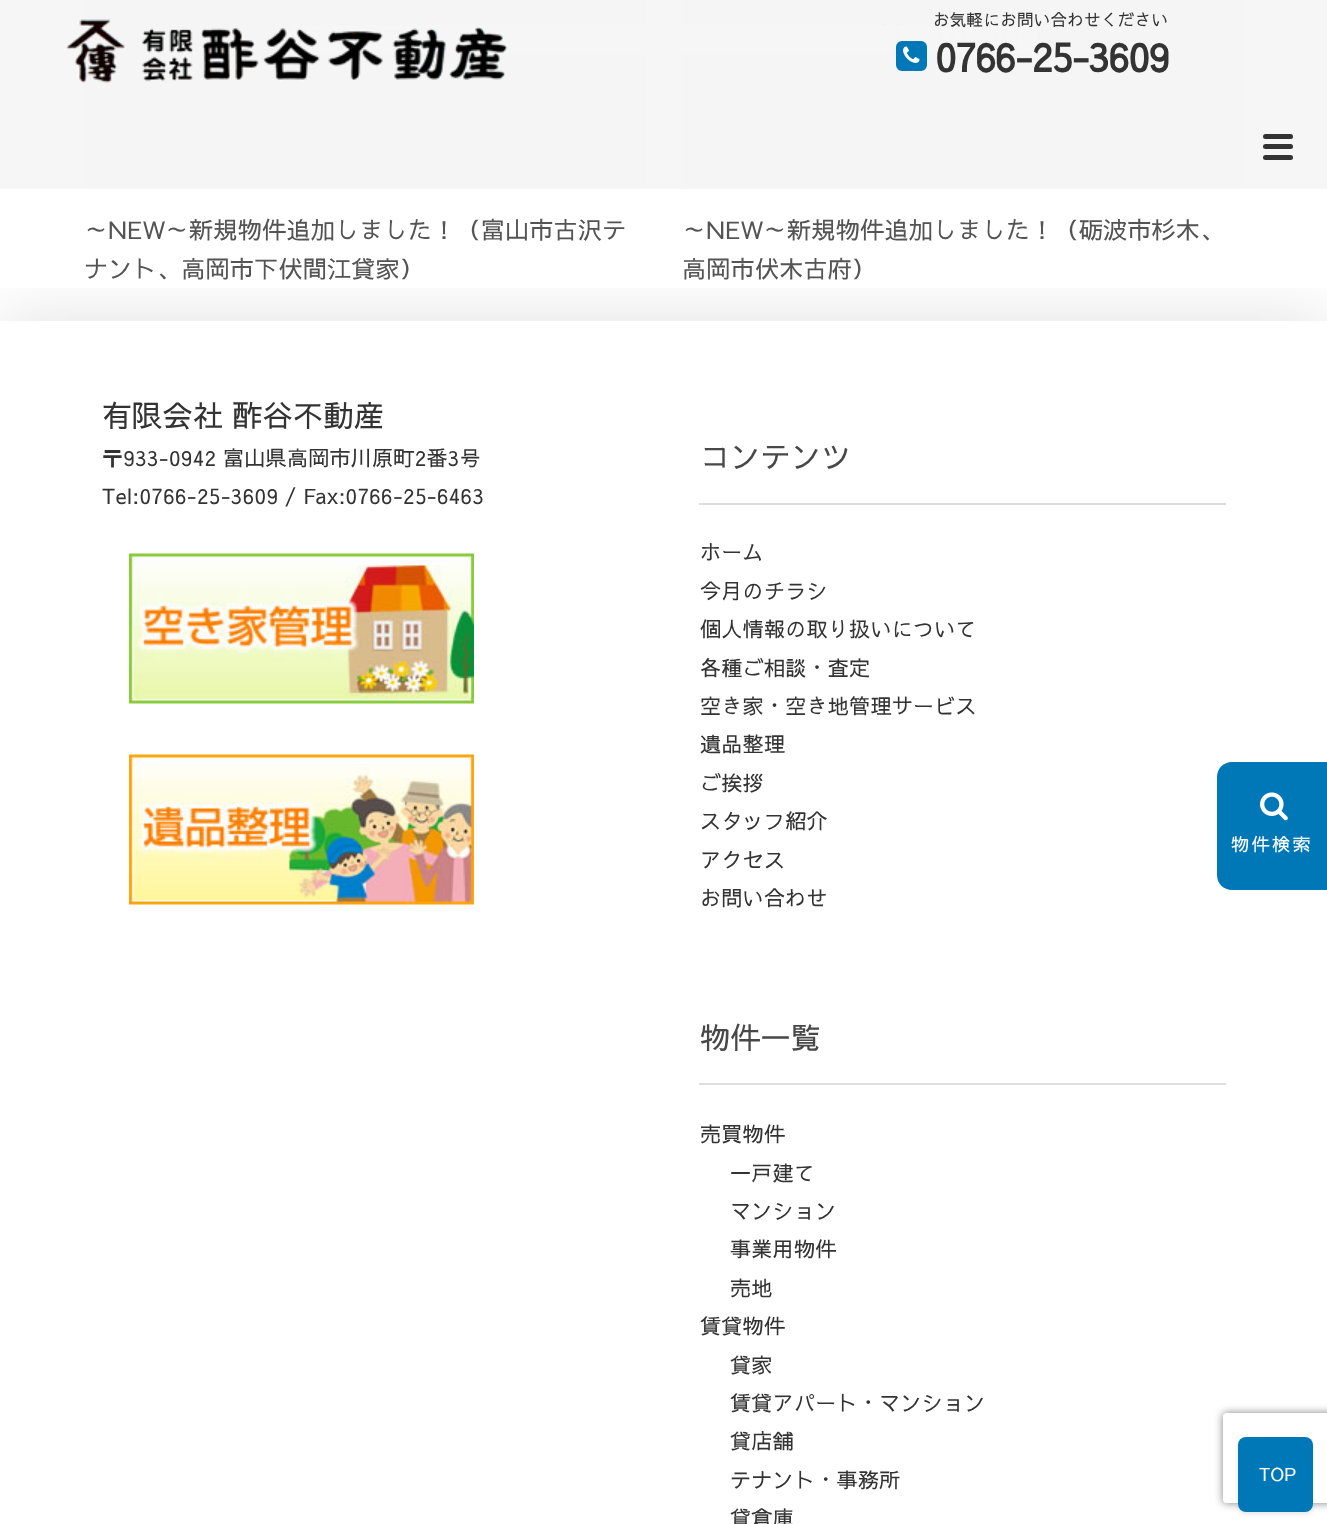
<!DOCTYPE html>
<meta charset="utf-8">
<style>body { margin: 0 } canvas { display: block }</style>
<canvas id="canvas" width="1327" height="1524"></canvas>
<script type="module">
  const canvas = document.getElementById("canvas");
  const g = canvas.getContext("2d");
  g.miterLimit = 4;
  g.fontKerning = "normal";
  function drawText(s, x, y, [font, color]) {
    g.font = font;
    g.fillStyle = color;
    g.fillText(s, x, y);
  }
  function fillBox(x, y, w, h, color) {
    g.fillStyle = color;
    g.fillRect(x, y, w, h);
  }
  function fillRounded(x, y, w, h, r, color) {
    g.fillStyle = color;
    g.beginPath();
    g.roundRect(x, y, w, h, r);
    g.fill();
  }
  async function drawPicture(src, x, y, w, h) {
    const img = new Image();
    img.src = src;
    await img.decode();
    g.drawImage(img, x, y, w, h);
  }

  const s1 = ["16.5px Sawarabi Gothic", "#333333"];
  const s2 = ["bold 39px Sawarabi Gothic", "#333333"];
  const s3 = ["24px Sawarabi Gothic", "#545454"];
  const s4 = ["18px Sawarabi Gothic", "#FFFFFF"];
  const s5 = ["30px Sawarabi Gothic", "#333333"];
  const s6 = ["21px Sawarabi Gothic", "#333333"];
  const s7 = ["30px Sawarabi Gothic", "#484848"];

  fillBox(0, 0, 1327, 1524, "#FFFFFF");
  fillBox(0, 0, 1327, 189, "#F6F6F6");
  await drawPicture("pic3.png", 84, 0, 563, 186);
  await drawPicture("pic3.png", 681, 0, 563, 186);
  fillBox(284, 25, 754, 29, "rgba(246, 246, 246, 0.7)");
  await drawPicture("pic1.png", 66, 19, 442, 65);
  g.letterSpacing = "0.3px";
  drawText("お気軽にお問い合わせください", 933, 26, s1);
  g.fillStyle = "#0077B6";
  g.beginPath();
  g.roundRect(897, 42, 29, 28, 5);
  g.fill();
  g.strokeStyle = "#0077B6";
  g.lineWidth = 2;
  g.stroke();
  g.letterSpacing = "-1.5px";
  drawText("0766-25-3609", 935, 72, s2);
  await drawPicture("pic2.png", 903, 46, 17, 17);
  fillRounded(1263, 134, 30, 5, 2.5, "#333333");
  fillRounded(1263, 144, 30, 5, 2.5, "#333333");
  fillRounded(1263, 155, 30, 5, 2.5, "#333333");
  g.save();
  g.beginPath();
  g.rect(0, 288, 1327, 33);
  g.clip();
  g.fillStyle = "rgba(0, 0, 0, 0.12)";
  g.filter = "blur(34px)";
  g.beginPath();
  g.rect(0, 321, 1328, 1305);
  g.fill();
  g.filter = "none";
  g.restore();
  g.letterSpacing = "0.3px";
  drawText("～NEW～新規物件追加しました！（富山市古沢テ", 84, 239, s3);
  drawText("ナント、高岡市下伏間江貸家）", 84, 278, s3);
  drawText("～NEW～新規物件追加しました！（砺波市杉木、", 682, 239, s3);
  drawText("高岡市伏木古府）", 682, 278, s3);
  g.fillStyle = "#0077B6";
  g.beginPath();
  g.moveTo(1232, 762);
  g.lineTo(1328, 762);
  g.lineTo(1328, 890);
  g.lineTo(1232, 890);
  g.bezierCurveTo(1223.5, 890, 1217, 883.5, 1217, 875);
  g.lineTo(1217, 777);
  g.bezierCurveTo(1217, 768.5, 1223.5, 762, 1232, 762);
  g.closePath();
  g.fill();
  await drawPicture("pic4.png", 1260, 792, 28, 29);
  g.letterSpacing = "2.5px";
  drawText("物件検索", 1231, 851, s4);
  g.letterSpacing = "0.3px";
  drawText("有限会社 酢谷不動産", 102, 427, s5);
  drawText("〒933-0942 富山県高岡市川原町2番3号", 102, 466, s6);
  drawText("Tel:0766-25-3609 / Fax:0766-25-6463", 102, 504, s6);
  await drawPicture("pic5.png", 129, 553, 345, 151);
  await drawPicture("pic6.png", 129, 754, 345, 151);
  fillBox(699, 503, 527, 2, "#DDDDDD");
  drawText("コンテンツ", 700, 468, s7);
  drawText("ホーム", 700, 560, s6);
  drawText("今月のチラシ", 700, 599, s6);
  drawText("個人情報の取り扱いについて", 700, 637, s6);
  drawText("各種ご相談・査定", 700, 676, s6);
  drawText("空き家・空き地管理サービス", 700, 714, s6);
  drawText("遺品整理", 700, 752, s6);
  drawText("ご挨拶", 700, 791, s6);
  drawText("スタッフ紹介", 700, 829, s6);
  drawText("アクセス", 700, 868, s6);
  drawText("お問い合わせ", 700, 906, s6);
  fillBox(699, 1083, 527, 2, "#DDDDDD");
  drawText("物件一覧", 700, 1049, s7);
  drawText("売買物件", 700, 1142, s6);
  drawText("一戸建て", 730, 1181, s6);
  drawText("マンション", 730, 1219, s6);
  drawText("事業用物件", 730, 1257, s6);
  drawText("売地", 730, 1296, s6);
  drawText("賃貸物件", 700, 1334, s6);
  drawText("貸家", 730, 1373, s6);
  drawText("賃貸アパート・マンション", 730, 1411, s6);
  drawText("貸店舗", 730, 1449, s6);
  drawText("テナント・事務所", 730, 1488, s6);
  drawText("貸倉庫", 730, 1526, s6);
  g.fillStyle = "rgba(0, 0, 0, 0.08)";
  g.filter = "blur(2px)";
  g.beginPath();
  g.roundRect(1238, 1440, 75, 75, 8);
  g.fill();
  g.filter = "none";
  g.save();
  g.beginPath();
  g.moveTo(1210, 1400);
  g.lineTo(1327, 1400);
  g.lineTo(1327, 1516);
  g.lineTo(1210, 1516);
  g.closePath();
  g.moveTo(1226, 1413);
  g.lineTo(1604, 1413);
  g.bezierCurveTo(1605.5, 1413, 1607, 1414.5, 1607, 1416);
  g.lineTo(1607, 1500);
  g.bezierCurveTo(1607, 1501.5, 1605.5, 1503, 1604, 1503);
  g.lineTo(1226, 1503);
  g.bezierCurveTo(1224.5, 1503, 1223, 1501.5, 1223, 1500);
  g.lineTo(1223, 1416);
  g.bezierCurveTo(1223, 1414.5, 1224.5, 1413, 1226, 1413);
  g.closePath();
  g.clip("evenodd");
  g.fillStyle = "#808080";
  g.filter = "blur(4px)";
  g.beginPath();
  g.roundRect(1223, 1413, 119, 90, 3);
  g.fill();
  g.filter = "none";
  g.restore();
  fillRounded(1238, 1437, 75, 75, 8, "#0077B6");
  drawText("TOP", 1259, 1481, s4);
</script>
